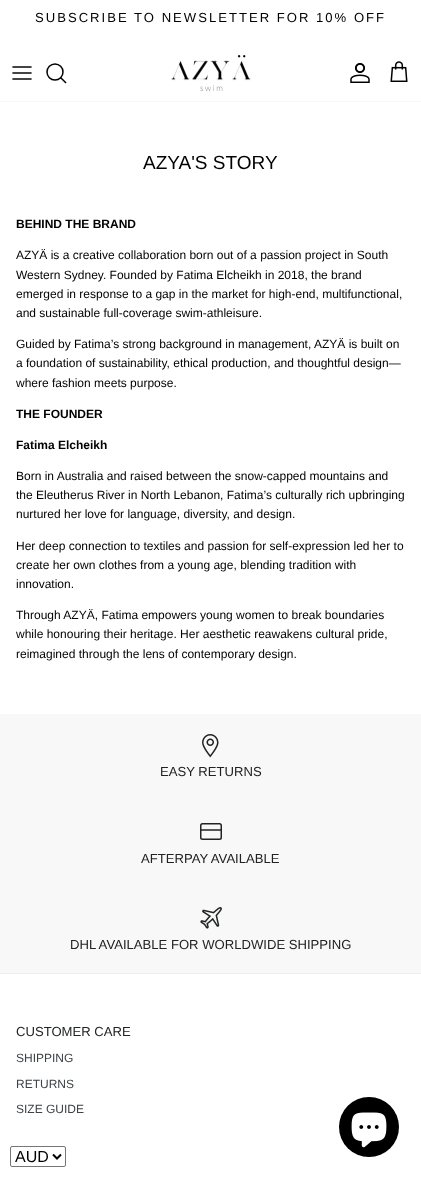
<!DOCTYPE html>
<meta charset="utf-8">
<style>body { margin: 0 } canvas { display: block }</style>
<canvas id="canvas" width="421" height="1178"></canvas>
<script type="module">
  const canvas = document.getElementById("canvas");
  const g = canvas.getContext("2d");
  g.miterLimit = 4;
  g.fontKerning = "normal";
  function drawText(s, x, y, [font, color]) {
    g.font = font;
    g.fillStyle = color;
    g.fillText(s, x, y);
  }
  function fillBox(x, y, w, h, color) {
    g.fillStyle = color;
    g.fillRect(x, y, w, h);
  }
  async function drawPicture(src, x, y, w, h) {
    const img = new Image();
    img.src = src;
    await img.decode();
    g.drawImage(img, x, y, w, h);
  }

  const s1 = ["13.1px Liberation Sans", "#000000"];
  const s2 = ["19px Liberation Sans", "#000000"];
  const s3 = ["bold 12px Liberation Sans", "#000000"];
  const s4 = ["12px Liberation Sans", "#000000"];
  const s5 = ["13.1px Liberation Sans", "#202223"];
  const s6 = ["12px Liberation Sans", "#3D4246"];
  const s7 = ["16px Liberation Sans", "#000000"];

  fillBox(0, 0, 421, 1178, "#FFFFFF");
  g.letterSpacing = "2px";
  drawText("SUBSCRIBE TO NEWSLETTER FOR 10% OFF", 35, 22, s1);
  fillBox(0, 101, 421, 1, "#F8F7F4");
  await drawPicture("pic1.png", 12, 66, 20, 14);
  g.beginPath();
  g.arc(55, 72, 8, 0, Math.PI * 2);
  g.strokeStyle = "#000000";
  g.lineWidth = 1.5;
  g.stroke();
  g.beginPath();
  g.moveTo(61, 78);
  g.lineTo(65.5, 82.5);
  g.lineCap = "square";
  g.stroke();
  await drawPicture("pic2.png", 171, 55, 80, 36);
  await drawPicture("pic3.png", 350, 63, 20, 20);
  await drawPicture("pic4.png", 390, 61, 18, 21);
  g.letterSpacing = "0px";
  drawText("AZYA'S STORY", 143, 169, s2);
  drawText("BEHIND THE BRAND", 16, 228, s3);
  drawText("AZYÄ is a creative collaboration born out of a passion project in South", 16, 259, s4);
  drawText("Western Sydney. Founded by Fatima Elcheikh in 2018, the brand", 16, 279, s4);
  drawText("emerged in response to a gap in the market for high-end, multifunctional,", 16, 298, s4);
  drawText("and sustainable full-coverage swim-athleisure.", 16, 317, s4);
  drawText("Guided by Fatima’s strong background in management, AZYÄ is built on", 16, 348, s4);
  drawText("a foundation of sustainability, ethical production, and thoughtful design—", 16, 367, s4);
  drawText("where fashion meets purpose.", 16, 387, s4);
  drawText("THE FOUNDER", 16, 418, s3);
  drawText("Fatima Elcheikh", 16, 449, s3);
  drawText("Born in Australia and raised between the snow-capped mountains and", 16, 480, s4);
  drawText("the Eleutherus River in North Lebanon, Fatima’s culturally rich upbringing", 16, 499, s4);
  drawText("nurtured her love for language, diversity, and design.", 16, 518, s4);
  drawText("Her deep connection to textiles and passion for self-expression led her to", 16, 550, s4);
  drawText("create her own clothes from a young age, blending tradition with", 16, 569, s4);
  drawText("innovation.", 16, 588, s4);
  drawText("Through AZYÄ, Fatima empowers young women to break boundaries", 16, 619, s4);
  drawText("while honouring their heritage. Her aesthetic reawakens cultural pride,", 16, 638, s4);
  drawText("reimagined through the lens of contemporary design.", 16, 658, s4);
  fillBox(0, 714, 421, 259, "#F8F8F8");
  await drawPicture("pic5.png", 202, 734, 17, 24);
  drawText("EASY RETURNS", 160, 776, s5);
  g.beginPath();
  g.roundRect(200.75, 823.75, 20.5, 15.5, 1.75);
  g.strokeStyle = "#202223";
  g.stroke();
  fillBox(201, 829, 21, 2, "rgba(32, 34, 35, 0.75)");
  drawText("AFTERPAY AVAILABLE", 141, 863, s5);
  await drawPicture("pic6.png", 200, 907, 22, 22);
  drawText("DHL AVAILABLE FOR WORLDWIDE SHIPPING", 70, 949, s5);
  fillBox(0, 973, 421, 1, "#EEEEEE");
  drawText("CUSTOMER CARE", 16, 1036, s5);
  drawText("SHIPPING", 16, 1062, s6);
  drawText("RETURNS", 16, 1088, s6);
  drawText("SIZE GUIDE", 16, 1113, s6);
  g.beginPath();
  g.roundRect(10.5, 1146.5, 55, 20, 1.5);
  g.strokeStyle = "#767676";
  g.lineWidth = 1;
  g.stroke();
  g.beginPath();
  g.moveTo(53, 1154.5);
  g.lineTo(57, 1158.5);
  g.lineTo(61, 1154.5);
  g.strokeStyle = "#000000";
  g.lineWidth = 2;
  g.lineCap = "butt";
  g.stroke();
  drawText("AUD", 15, 1162, s7);
  g.beginPath();
  g.arc(369, 1127, 30, 0, Math.PI * 2);
  g.fill();
  await drawPicture("pic7.png", 351, 1112, 36, 36);
</script>
